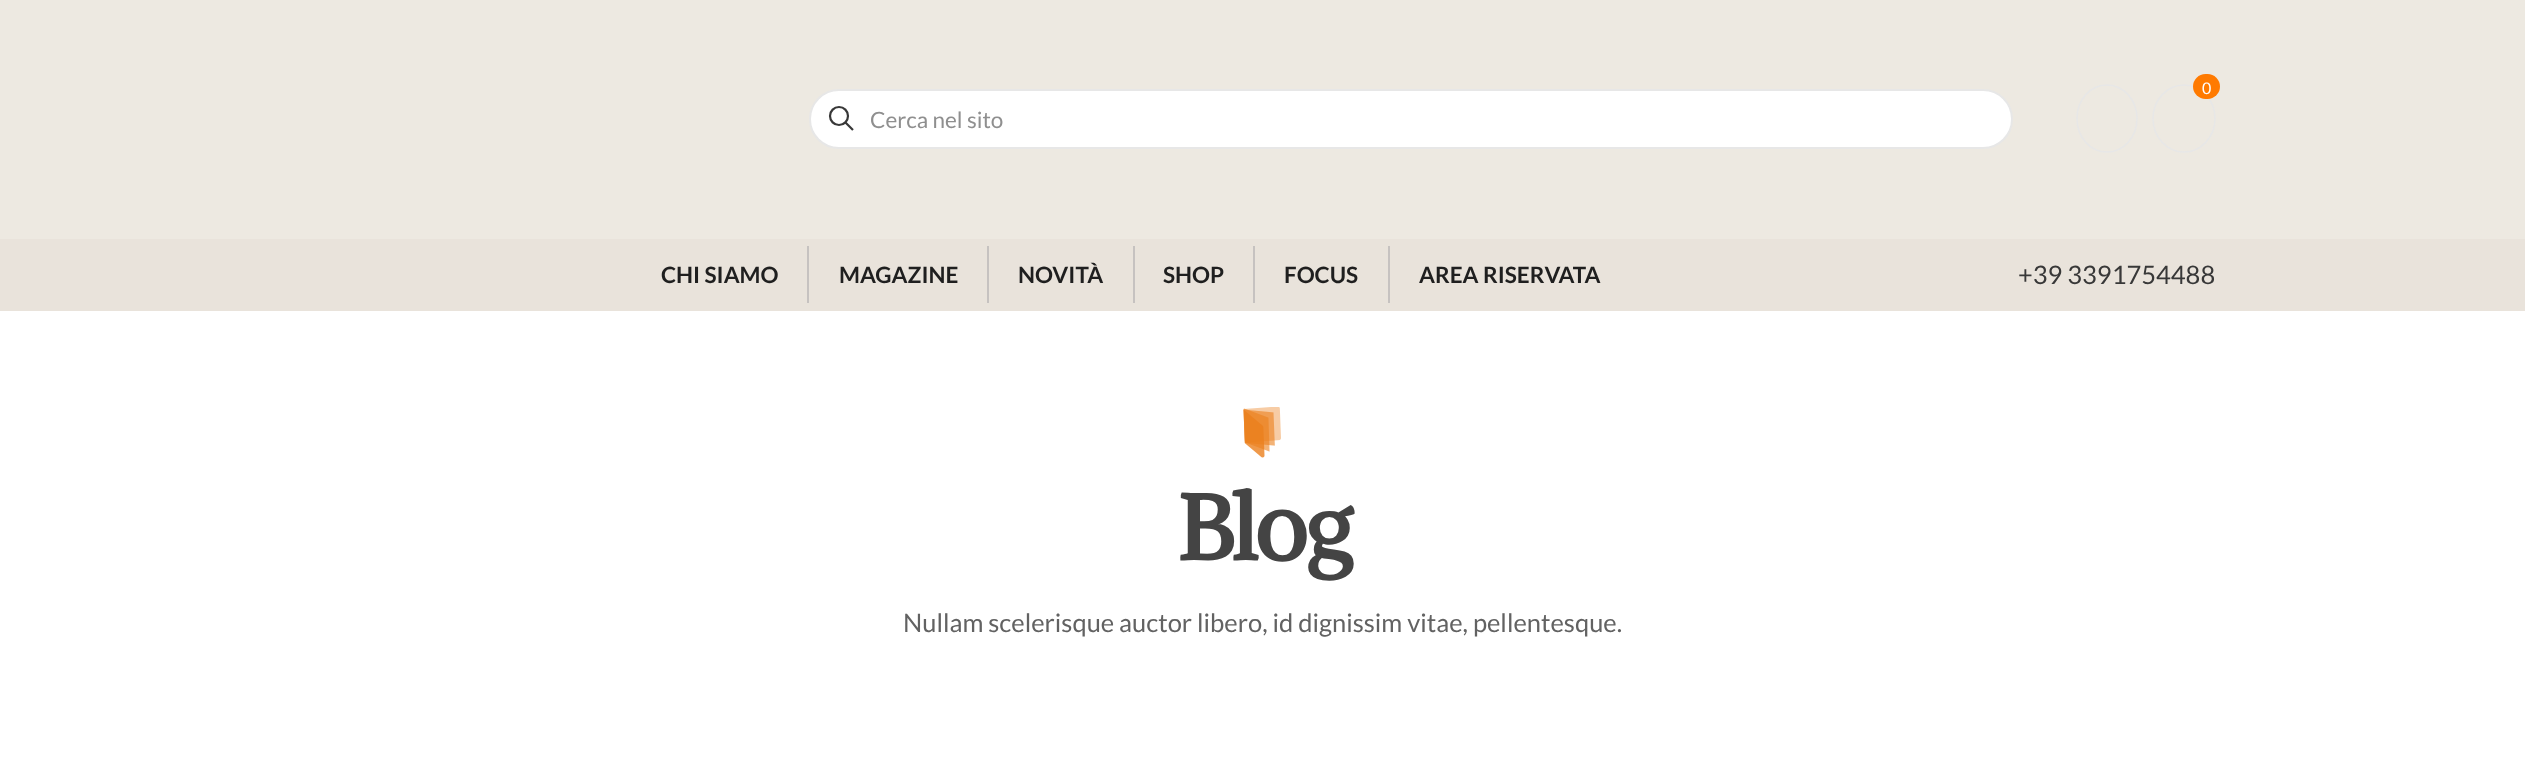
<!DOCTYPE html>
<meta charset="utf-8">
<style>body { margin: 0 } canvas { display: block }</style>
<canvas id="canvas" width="2525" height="780"></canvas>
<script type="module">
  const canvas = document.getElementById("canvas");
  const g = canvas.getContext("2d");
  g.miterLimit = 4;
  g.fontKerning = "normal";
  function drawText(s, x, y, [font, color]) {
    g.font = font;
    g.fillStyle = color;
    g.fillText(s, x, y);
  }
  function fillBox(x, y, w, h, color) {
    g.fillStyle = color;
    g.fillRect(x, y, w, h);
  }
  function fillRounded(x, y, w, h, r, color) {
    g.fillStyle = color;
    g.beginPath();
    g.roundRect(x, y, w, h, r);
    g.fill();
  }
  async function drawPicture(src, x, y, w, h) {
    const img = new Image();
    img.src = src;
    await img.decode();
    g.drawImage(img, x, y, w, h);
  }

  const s1 = ["16px Lato", "#FFFFFF"];
  const s2 = ["22.5px Lato", "#8F8F8F"];
  const s3 = ["bold 22.5px Lato", "#1F1F1F"];
  const s4 = ["25.5px Lato", "#383838"];
  const s5 = ["bold 92px Alike", "#444444"];
  const s6 = ["25.5px Lato", "#626262"];

  fillBox(0, 0, 2525, 780, "#FFFFFF");
  fillBox(0, 0, 2525, 239, "#EDE9E1");
  g.beginPath();
  g.moveTo(2107, 85);
  g.bezierCurveTo(2123.5, 85, 2137, 100, 2137, 118.5);
  g.bezierCurveTo(2137, 137, 2123.5, 152, 2107, 152);
  g.bezierCurveTo(2090, 152, 2077, 137, 2077, 118.5);
  g.bezierCurveTo(2077, 100, 2090, 85, 2107, 85);
  g.closePath();
  g.strokeStyle = "#E7E7E7";
  g.lineWidth = 1.5;
  g.stroke();
  g.beginPath();
  g.moveTo(2184, 85);
  g.bezierCurveTo(2201, 85, 2215, 100, 2215, 118.5);
  g.bezierCurveTo(2215, 137, 2201, 152, 2184, 152);
  g.bezierCurveTo(2167, 152, 2153, 137, 2153, 118.5);
  g.bezierCurveTo(2153, 100, 2167, 85, 2184, 85);
  g.closePath();
  g.stroke();
  fillRounded(2193, 74, 27, 25, 12.5, "#FF7A00");
  drawText("0", 2202, 94, s1);
  g.beginPath();
  g.roundRect(810, 90, 1202, 58, 29);
  g.fill();
  g.lineWidth = 2;
  g.stroke();
  g.beginPath();
  g.arc(839, 116, 9, 0, Math.PI * 2);
  g.strokeStyle = "#383838";
  g.lineWidth = 2.2;
  g.stroke();
  g.beginPath();
  g.moveTo(845.5, 122.5);
  g.lineTo(853, 130);
  g.stroke();
  drawText("Cerca nel sito", 870, 128, s2);
  fillBox(0, 239, 2525, 72, "#E9E3DB");
  drawText("CHI SIAMO", 661, 283, s3);
  fillBox(807, 246, 2, 57, "#C6C2C0");
  drawText("MAGAZINE", 839, 283, s3);
  fillBox(987, 246, 2, 57, "#C6C2C0");
  drawText("NOVITÀ", 1018, 283, s3);
  fillBox(1133, 246, 2, 57, "#C6C2C0");
  drawText("SHOP", 1163, 283, s3);
  fillBox(1253, 246, 2, 57, "#C6C2C0");
  drawText("FOCUS", 1284, 283, s3);
  fillBox(1388, 246, 2, 57, "#C6C2C0");
  drawText("AREA RISERVATA", 1419, 283, s3);
  drawText("+39 3391754488", 2018, 284, s4);
  await drawPicture("pic1.png", 1243, 407, 38, 51);
  g.letterSpacing = "-3px";
  drawText("Blog", 1177, 560, s5);
  g.letterSpacing = "0px";
  drawText("Nullam scelerisque auctor libero, id dignissim vitae, pellentesque.", 903, 632, s6);
</script>
